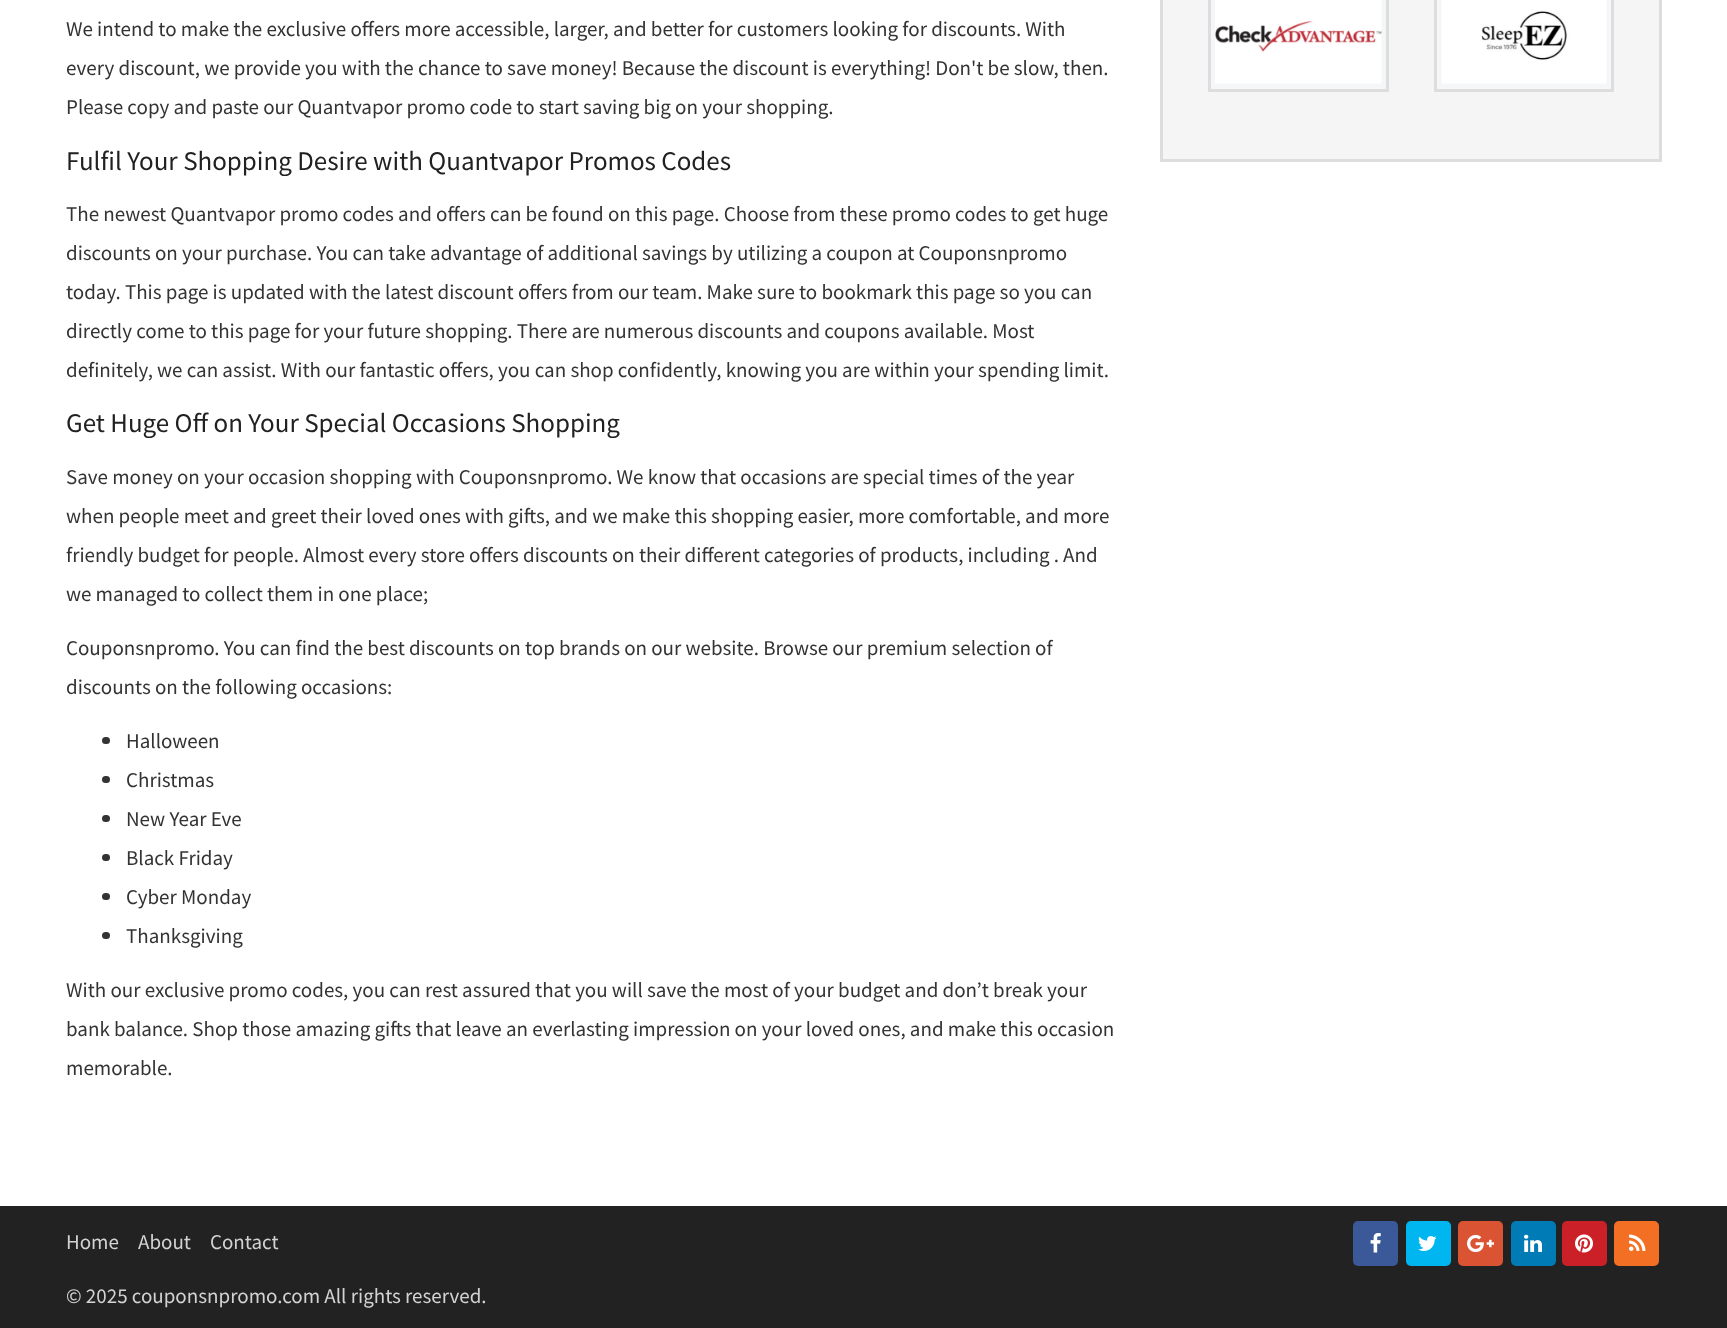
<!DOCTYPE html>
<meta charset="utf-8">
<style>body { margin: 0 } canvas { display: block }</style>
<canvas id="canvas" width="1727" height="1328"></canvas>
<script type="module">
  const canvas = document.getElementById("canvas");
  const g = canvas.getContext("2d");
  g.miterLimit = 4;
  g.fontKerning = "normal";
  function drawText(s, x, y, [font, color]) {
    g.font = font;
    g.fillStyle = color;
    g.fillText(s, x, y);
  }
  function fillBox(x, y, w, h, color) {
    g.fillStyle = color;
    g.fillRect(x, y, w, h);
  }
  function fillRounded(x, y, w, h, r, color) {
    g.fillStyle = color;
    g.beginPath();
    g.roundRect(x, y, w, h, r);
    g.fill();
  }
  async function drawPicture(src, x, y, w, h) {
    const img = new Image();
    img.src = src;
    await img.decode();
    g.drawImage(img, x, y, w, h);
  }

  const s1 = ["21px Source Sans Pro", "#333333"];
  const s2 = ["27px Source Sans Pro", "#212121"];
  const s3 = ["21px Source Sans Pro", "#D3D3D3"];

  fillBox(0, 0, 1727, 1328, "#FFFFFF");
  drawText("We intend to make the exclusive offers more accessible, larger, and better for customers looking for discounts. With", 66, 36, s1);
  drawText("every discount, we provide you with the chance to save money! Because the discount is everything! Don't be slow, then.", 66, 75, s1);
  drawText("Please copy and paste our Quantvapor promo code to start saving big on your shopping.", 66, 114, s1);
  drawText("Fulfil Your Shopping Desire with Quantvapor Promos Codes", 66, 170, s2);
  drawText("The newest Quantvapor promo codes and offers can be found on this page. Choose from these promo codes to get huge", 66, 221, s1);
  drawText("discounts on your purchase. You can take advantage of additional savings by utilizing a coupon at Couponsnpromo", 66, 260, s1);
  drawText("today. This page is updated with the latest discount offers from our team. Make sure to bookmark this page so you can", 66, 299, s1);
  drawText("directly come to this page for your future shopping. There are numerous discounts and coupons available. Most", 66, 338, s1);
  drawText("definitely, we can assist. With our fantastic offers, you can shop confidently, knowing you are within your spending limit.", 66, 377, s1);
  drawText("Get Huge Off on Your Special Occasions Shopping", 66, 432, s2);
  drawText("Save money on your occasion shopping with Couponsnpromo. We know that occasions are special times of the year", 66, 484, s1);
  drawText("when people meet and greet their loved ones with gifts, and we make this shopping easier, more comfortable, and more", 66, 523, s1);
  drawText("friendly budget for people. Almost every store offers discounts on their different categories of products, including . And", 66, 562, s1);
  drawText("we managed to collect them in one place;", 66, 601, s1);
  drawText("Couponsnpromo. You can find the best discounts on top brands on our website. Browse our premium selection of", 66, 655, s1);
  drawText("discounts on the following occasions:", 66, 694, s1);
  fillRounded(102, 737, 8, 7, 3.5, "#333333");
  drawText("Halloween", 126, 748, s1);
  fillRounded(102, 776, 8, 7, 3.5, "#333333");
  drawText("Christmas", 126, 787, s1);
  fillRounded(102, 815, 8, 7, 3.5, "#333333");
  drawText("New Year Eve", 126, 826, s1);
  fillRounded(102, 854, 8, 7, 3.5, "#333333");
  drawText("Black Friday", 126, 865, s1);
  fillRounded(102, 893, 8, 7, 3.5, "#333333");
  drawText("Cyber Monday", 126, 904, s1);
  fillRounded(102, 932, 8, 7, 3.5, "#333333");
  drawText("Thanksgiving", 126, 943, s1);
  drawText("With our exclusive promo codes, you can rest assured that you will save the most of your budget and don’t break your", 66, 997, s1);
  drawText("bank balance. Shop those amazing gifts that leave an everlasting impression on your loved ones, and make this occasion", 66, 1036, s1);
  drawText("memorable.", 66, 1075, s1);
  g.fillStyle = "#F5F5F5";
  g.beginPath();
  g.rect(1161.5, -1.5, 499, 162);
  g.fill();
  g.strokeStyle = "#DDDDDD";
  g.lineWidth = 3;
  g.stroke();
  g.fillStyle = "#F5F6F8";
  g.beginPath();
  g.rect(1209.5, -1.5, 178, 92);
  g.fill();
  g.stroke();
  await drawPicture("pic1.png", 1215, 0, 167, 84);
  g.beginPath();
  g.rect(1435.5, -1.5, 177, 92);
  g.fill();
  g.stroke();
  await drawPicture("pic2.png", 1441, 0, 166, 84);
  fillBox(0, 1206, 1727, 122, "#222222");
  drawText("Home", 66, 1249, s3);
  drawText("About", 138, 1249, s3);
  drawText("Contact", 210, 1249, s3);
  drawText("© 2025 couponsnpromo.com All rights reserved.", 66, 1303, s3);
  fillRounded(1353, 1221, 45, 45, 5, "#3B5998");
  await drawPicture("pic3.png", 1370, 1233, 11, 20);
  fillRounded(1406, 1221, 45, 45, 5, "#00B6F1");
  await drawPicture("pic4.png", 1418, 1236, 19, 15);
  fillRounded(1458, 1221, 45, 45, 5, "#DA5333");
  await drawPicture("pic5.png", 1467, 1234, 27, 19);
  fillRounded(1511, 1221, 45, 45, 5, "#007BB5");
  await drawPicture("pic6.png", 1524, 1234, 18, 18);
  fillRounded(1562, 1221, 45, 45, 5, "#CB2027");
  await drawPicture("pic7.png", 1575, 1234, 18, 19);
  fillRounded(1614, 1221, 45, 45, 5, "#F36F24");
  await drawPicture("pic8.png", 1629, 1234, 17, 17);
</script>
